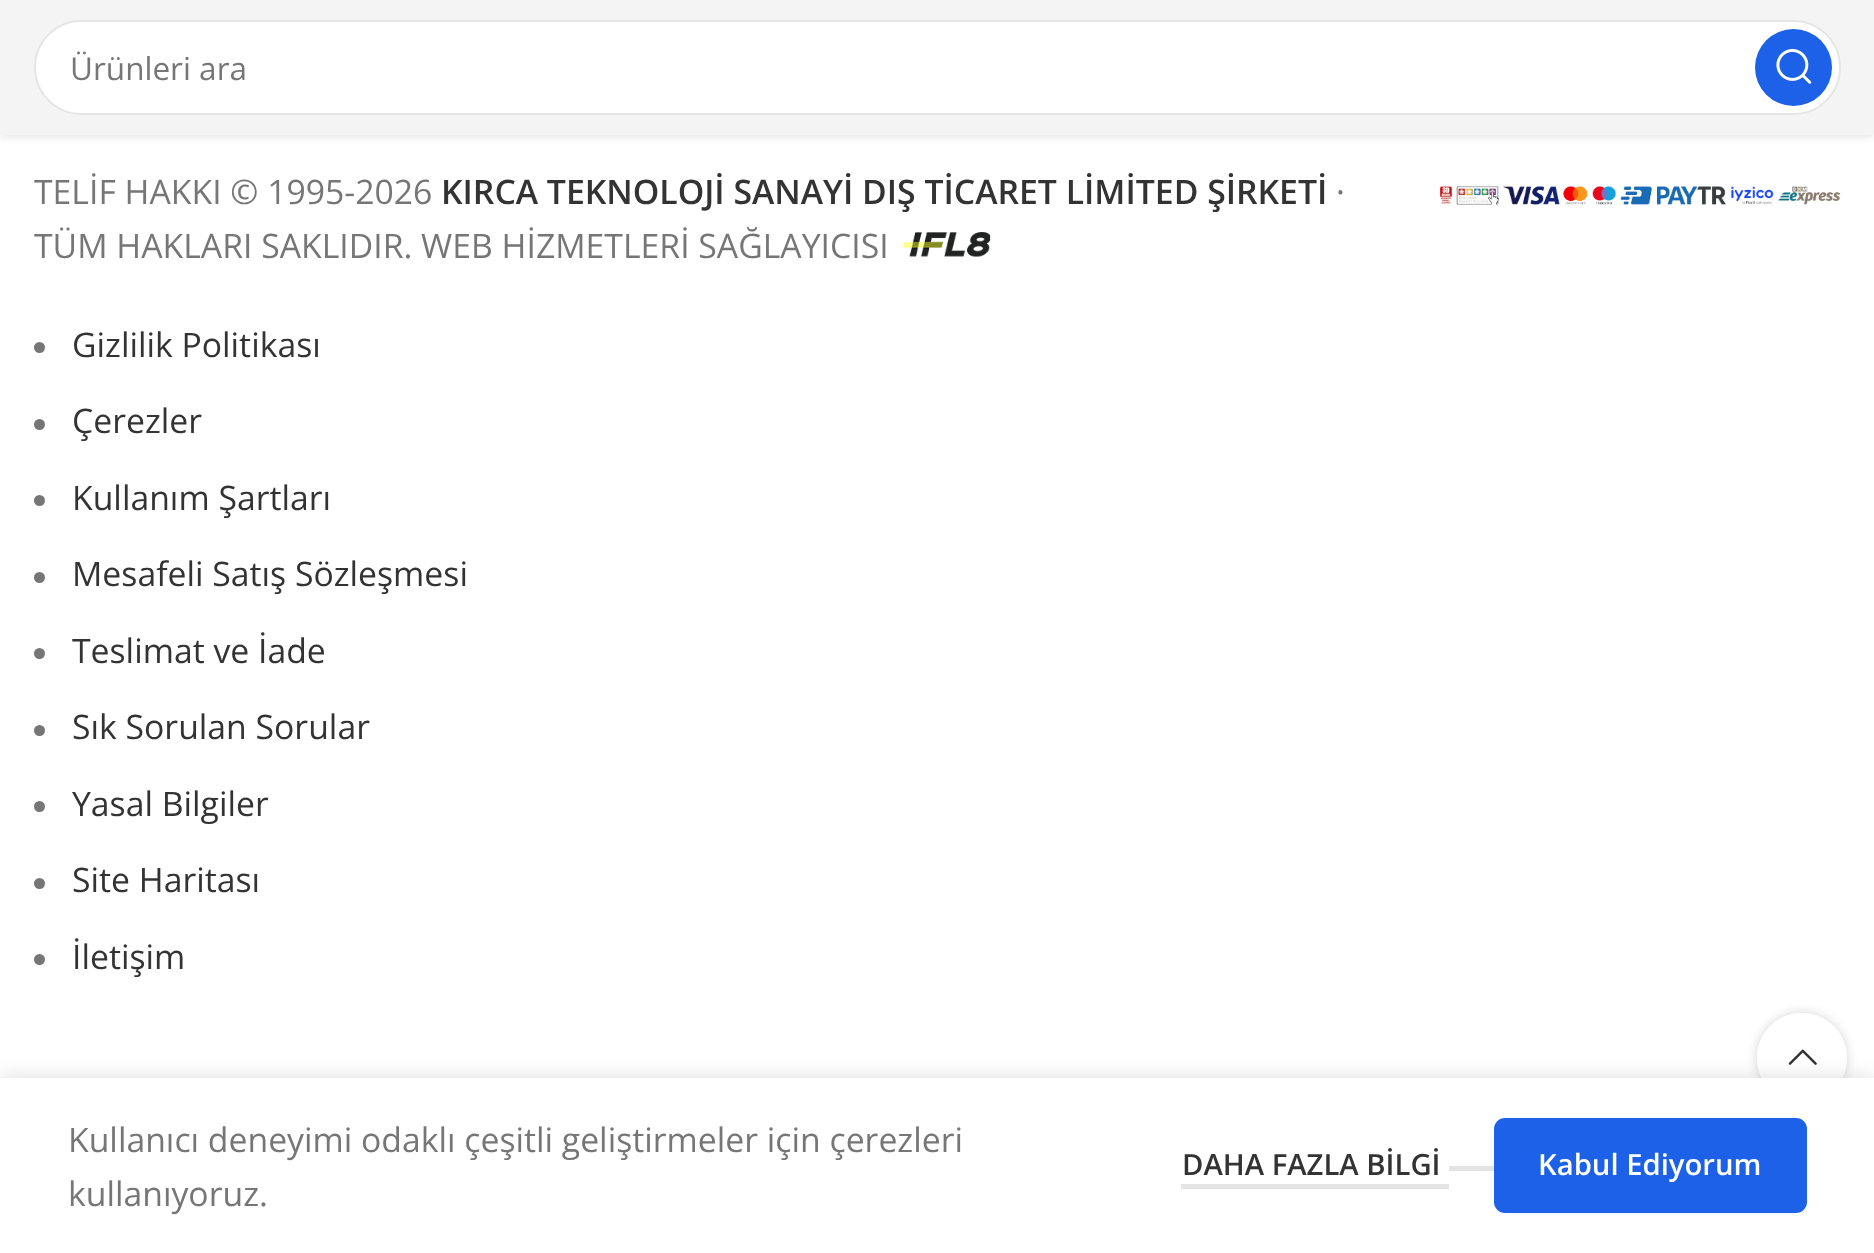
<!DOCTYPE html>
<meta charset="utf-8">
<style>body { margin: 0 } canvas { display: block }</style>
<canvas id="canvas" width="1874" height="1253"></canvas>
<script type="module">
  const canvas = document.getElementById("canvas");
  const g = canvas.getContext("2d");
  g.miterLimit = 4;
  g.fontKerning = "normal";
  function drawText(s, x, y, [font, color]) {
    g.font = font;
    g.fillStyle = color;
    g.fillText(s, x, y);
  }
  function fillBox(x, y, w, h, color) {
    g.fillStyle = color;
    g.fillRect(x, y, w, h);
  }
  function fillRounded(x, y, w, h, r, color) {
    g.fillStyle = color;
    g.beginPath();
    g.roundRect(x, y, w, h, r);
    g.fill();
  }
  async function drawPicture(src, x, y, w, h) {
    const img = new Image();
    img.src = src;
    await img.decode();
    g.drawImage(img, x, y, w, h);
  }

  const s1 = ["31.5px Open Sans", "#767676"];
  const s2 = ["33.75px Open Sans", "#767676"];
  const s3 = ["600 33.75px Open Sans", "#333333"];
  const s4 = ["33.75px Open Sans", "#333333"];
  const s5 = ["600 29.25px Open Sans", "#333333"];
  const s6 = ["600 29.25px Open Sans", "#FFFFFF"];

  fillBox(0, 0, 1874, 1253, "#FFFFFF");
  g.fillStyle = "rgba(0, 0, 0, 0.1)";
  g.filter = "blur(3.5px)";
  g.beginPath();
  g.rect(0, 2, 1874, 135);
  g.fill();
  g.filter = "none";
  fillBox(0, 0, 1874, 135, "#F4F4F4");
  fillRounded(34, 20, 1807, 95, 47.5, "#FFFFFF");
  g.beginPath();
  g.roundRect(35, 21, 1805, 93, 46.5);
  g.strokeStyle = "rgba(0, 0, 0, 0.1)";
  g.lineWidth = 2;
  g.stroke();
  drawText("Ürünleri ara", 70, 80, s1);
  g.fillStyle = "#1C61E7";
  g.beginPath();
  g.arc(1793.5, 67.5, 38.5, 0, Math.PI * 2);
  g.fill();
  await drawPicture("pic1.png", 1776, 49, 36, 35);
  drawText("TELİF HAKKI © 1995-2026", 34, 204, s2);
  drawText("KIRCA TEKNOLOJİ SANAYİ DIŞ TİCARET LİMİTED ŞİRKETİ", 441, 204, s3);
  drawText("·", 1336, 204, s2);
  drawText("TÜM HAKLARI SAKLIDIR. WEB HİZMETLERİ SAĞLAYICISI", 34, 258, s2);
  await drawPicture("pic2.png", 902, 232, 89, 25);
  g.beginPath();
  g.arc(39.5, 347.5, 5.5, 0, Math.PI * 2);
  g.fill();
  drawText("Gizlilik Politikası", 72, 357, s4);
  g.fillStyle = "#767676";
  g.beginPath();
  g.arc(39.5, 424.5, 5.5, 0, Math.PI * 2);
  g.fill();
  drawText("Çerezler", 72, 433, s4);
  g.fillStyle = "#767676";
  g.beginPath();
  g.arc(39.5, 500.5, 5.5, 0, Math.PI * 2);
  g.fill();
  drawText("Kullanım Şartları", 72, 510, s4);
  g.fillStyle = "#767676";
  g.beginPath();
  g.arc(39.5, 577.5, 5.5, 0, Math.PI * 2);
  g.fill();
  drawText("Mesafeli Satış Sözleşmesi", 72, 586, s4);
  g.fillStyle = "#767676";
  g.beginPath();
  g.arc(39.5, 653.5, 5.5, 0, Math.PI * 2);
  g.fill();
  drawText("Teslimat ve İade", 72, 663, s4);
  g.fillStyle = "#767676";
  g.beginPath();
  g.arc(39.5, 730.5, 5.5, 0, Math.PI * 2);
  g.fill();
  drawText("Sık Sorulan Sorular", 72, 739, s4);
  g.fillStyle = "#767676";
  g.beginPath();
  g.arc(39.5, 806.5, 5.5, 0, Math.PI * 2);
  g.fill();
  drawText("Yasal Bilgiler", 72, 816, s4);
  g.fillStyle = "#767676";
  g.beginPath();
  g.arc(39.5, 883.5, 5.5, 0, Math.PI * 2);
  g.fill();
  drawText("Site Haritası", 72, 892, s4);
  g.fillStyle = "#767676";
  g.beginPath();
  g.arc(39.5, 959.5, 5.5, 0, Math.PI * 2);
  g.fill();
  drawText("İletişim", 72, 969, s4);
  await drawPicture("pic3.png", 1440, 186, 401, 19);
  g.save();
  g.beginPath();
  g.moveTo(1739, 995);
  g.lineTo(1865, 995);
  g.lineTo(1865, 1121);
  g.lineTo(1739, 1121);
  g.closePath();
  g.moveTo(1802, 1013);
  g.bezierCurveTo(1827, 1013, 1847, 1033, 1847, 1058);
  g.bezierCurveTo(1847, 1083, 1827, 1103, 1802, 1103);
  g.bezierCurveTo(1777, 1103, 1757, 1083, 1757, 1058);
  g.bezierCurveTo(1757, 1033, 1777, 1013, 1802, 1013);
  g.closePath();
  g.clip("evenodd");
  g.fillStyle = "rgba(0, 0, 0, 0.17)";
  g.filter = "blur(5.5px)";
  g.beginPath();
  g.roundRect(1757, 1013, 90, 90, 45);
  g.fill();
  g.filter = "none";
  g.restore();
  g.fillStyle = "rgba(255, 255, 255, 0.9)";
  g.beginPath();
  g.arc(1802, 1058, 45, 0, Math.PI * 2);
  g.fill();
  await drawPicture("pic4.png", 1788, 1049, 29, 16);
  g.fillStyle = "rgba(0, 0, 0, 0.14)";
  g.filter = "blur(10px)";
  g.beginPath();
  g.rect(0, 1078, 1874, 175);
  g.fill();
  g.filter = "none";
  fillBox(0, 1078, 1874, 175, "#FFFFFF");
  drawText("Kullanıcı deneyimi odaklı çeşitli geliştirmeler için çerezleri", 68, 1152, s2);
  drawText("kullanıyoruz.", 68, 1206, s2);
  drawText("DAHA FAZLA BİLGİ", 1182, 1175, s5);
  fillBox(1181, 1184, 268, 5, "#E4E4E4");
  fillBox(1449, 1166, 45, 5, "#E4E4E4");
  fillRounded(1494, 1118, 313, 95, 11, "#1C61E7");
  drawText("Kabul Ediyorum", 1538, 1175, s6);
</script>
